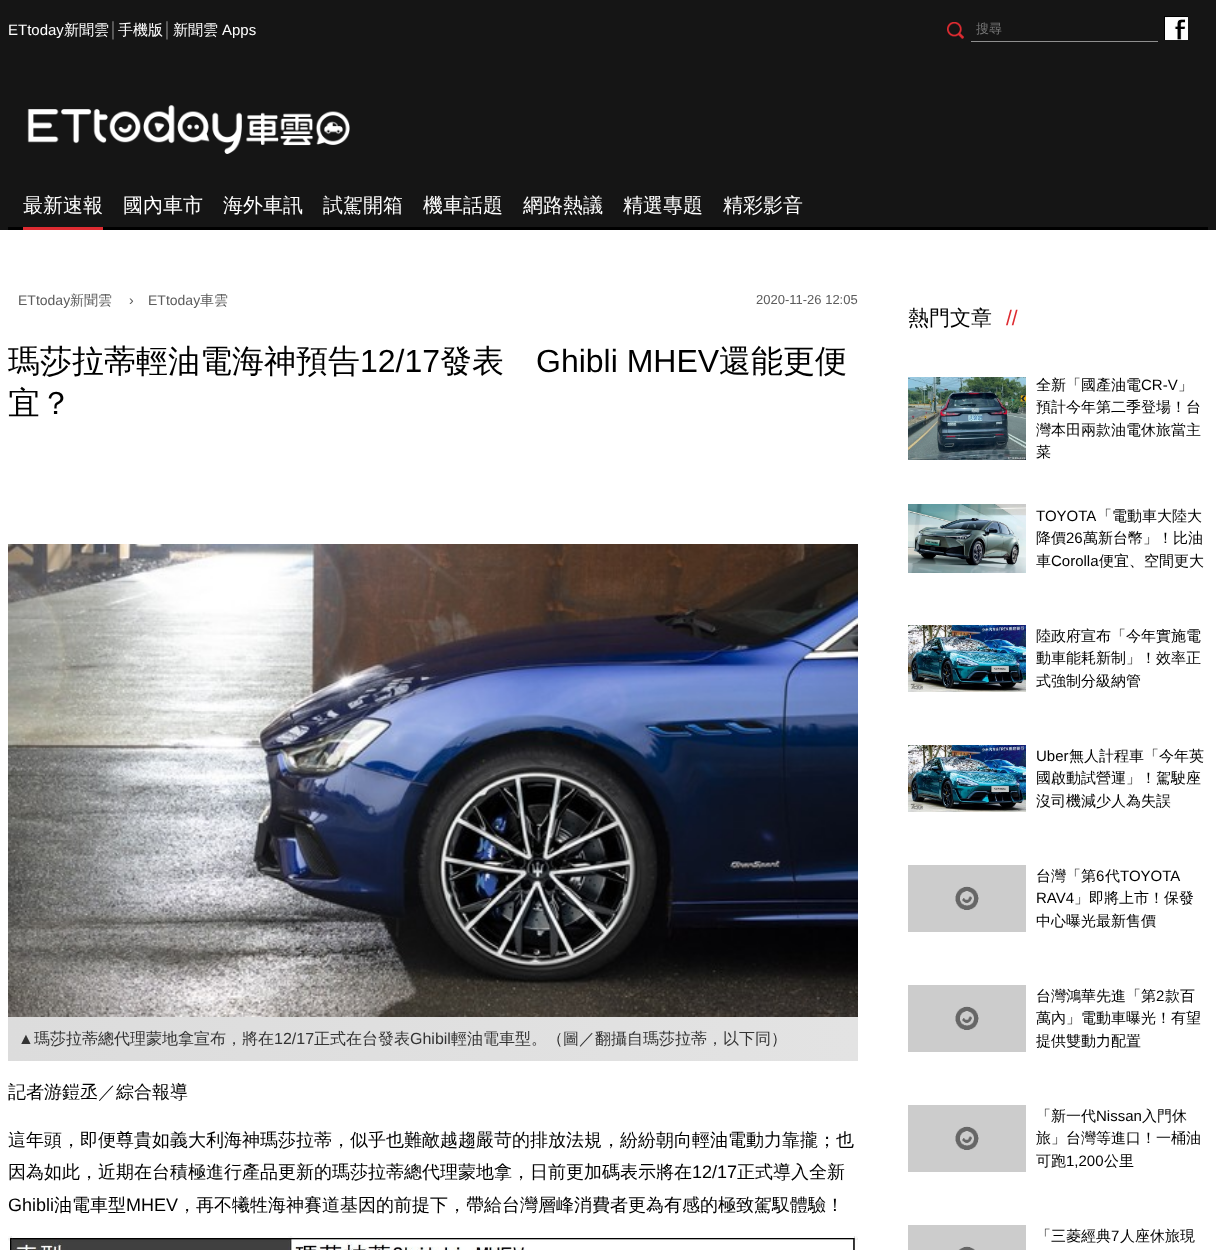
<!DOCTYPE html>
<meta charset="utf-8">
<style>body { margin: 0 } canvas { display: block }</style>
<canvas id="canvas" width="1216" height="1250"></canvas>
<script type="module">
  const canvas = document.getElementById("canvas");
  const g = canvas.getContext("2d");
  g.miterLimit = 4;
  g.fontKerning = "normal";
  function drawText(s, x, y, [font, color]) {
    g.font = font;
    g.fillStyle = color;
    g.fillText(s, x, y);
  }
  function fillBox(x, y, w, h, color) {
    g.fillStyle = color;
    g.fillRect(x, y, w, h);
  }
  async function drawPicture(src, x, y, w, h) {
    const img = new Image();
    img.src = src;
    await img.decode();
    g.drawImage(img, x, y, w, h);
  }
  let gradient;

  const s1 = ["15px Liberation Sans", "#FFFFFF"];
  const s2 = ["500 15px WenQuanYi Zen Hei", "#FFFFFF"];
  const s3 = ["15px Liberation Sans", "#8F8F8F"];
  const s4 = ["500 13px WenQuanYi Zen Hei", "#757575"];
  const s5 = ["500 20px WenQuanYi Zen Hei", "#FFFFFF"];
  const s6 = ["14px Liberation Sans", "#5B5B5B"];
  const s7 = ["500 14px WenQuanYi Zen Hei", "#5B5B5B"];
  const s8 = ["13px Liberation Sans", "#5B5B5B"];
  const s9 = ["500 32px WenQuanYi Zen Hei", "#000000"];
  const s10 = ["32px Liberation Sans", "#000000"];
  const s11 = ["16px Liberation Sans", "#333333"];
  const s12 = ["500 16px WenQuanYi Zen Hei", "#333333"];
  const s13 = ["500 18px WenQuanYi Zen Hei", "#000000"];
  const s14 = ["18px Liberation Sans", "#000000"];
  const s15 = ["500 21px WenQuanYi Zen Hei", "#000000"];
  const s16 = ["21px Liberation Sans", "#DE2B31"];
  const s17 = ["500 15px WenQuanYi Zen Hei", "#000000"];
  const s18 = ["15px Liberation Sans", "#000000"];

  fillBox(0, 0, 1216, 1250, "#FFFFFF");
  fillBox(0, 0, 1216, 230, "#151515");
  drawText("ETtoday", 8, 35, s1);
  drawText("新聞雲", 64, 35, s2);
  drawText("│", 109, 35, s3);
  drawText("手機版", 118, 35, s2);
  drawText("│", 163, 35, s3);
  drawText("新聞雲", 173, 35, s2);
  drawText("Apps", 222, 35, s1);
  await drawPicture("pic1.png", 947, 22, 17, 17);
  fillBox(971, 41, 187, 1, "#8F8F8F");
  drawText("搜尋", 976, 33, s4);
  await drawPicture("pic2.png", 1164, 16, 24, 24);
  await drawPicture("pic3.png", 27, 105, 323, 49);
  fillBox(8, 227, 1200, 3, "#000000");
  drawText("最新速報", 23, 212, s5);
  fillBox(23, 227, 80, 3, "#DE2B31");
  drawText("國內車市", 123, 212, s5);
  drawText("海外車訊", 223, 212, s5);
  drawText("試駕開箱", 323, 212, s5);
  drawText("機車話題", 423, 212, s5);
  drawText("網路熱議", 523, 212, s5);
  drawText("精選專題", 623, 212, s5);
  drawText("精彩影音", 723, 212, s5);
  drawText("ETtoday", 18, 305, s6);
  drawText("新聞雲", 70, 305, s7);
  drawText("›", 129, 305, s6);
  drawText("ETtoday", 148, 305, s6);
  drawText("車雲", 200, 305, s7);
  drawText("2020-11-26 12:05", 756, 304, s8);
  drawText("瑪莎拉蒂輕油電海神預告", 8, 372, s9);
  drawText("12/17", 360, 372, s10);
  drawText("發表", 440, 372, s9);
  drawText("Ghibli MHEV", 536, 372, s10);
  drawText("還能更便", 719, 372, s9);
  drawText("宜？", 8, 414, s9);
  await drawPicture("pic4.png", 8, 544, 850, 473);
  gradient = g.createLinearGradient(8, 1039, 858, 1039);
  gradient.addColorStop(0, "#DCDCDC");
  gradient.addColorStop(1, "#E3E3E3");
  gradient.addColorStop(1, "#FFFFFF");
  g.fillStyle = gradient;
  g.fillRect(8, 1017, 850, 44);
  drawText("▲", 18, 1044, s11);
  drawText("瑪莎拉蒂總代理蒙地拿宣布，將在", 34, 1044, s12);
  drawText("12/17", 274, 1044, s11);
  drawText("正式在台發表", 314, 1044, s12);
  drawText("Ghibil", 410, 1044, s11);
  drawText("輕油電車型。（圖／翻攝自瑪莎拉蒂，以下同）", 451, 1044, s12);
  drawText("記者游鎧丞／綜合報導", 8, 1098, s13);
  drawText("這年頭，即便尊貴如義大利海神瑪莎拉蒂，似乎也難敵越趨嚴苛的排放法規，紛紛朝向輕油電動力靠攏；也", 8, 1146, s13);
  drawText("因為如此，近期在台積極進行產品更新的瑪莎拉蒂總代理蒙地拿，日前更加碼表示將在", 8, 1178, s13);
  drawText("12/17", 692, 1178, s14);
  drawText("正式導入全新", 737, 1178, s13);
  drawText("Ghibli", 8, 1211, s14);
  drawText("油電車型", 54, 1211, s13);
  drawText("MHEV", 126, 1211, s14);
  drawText("，再不犧牲海神賽道基因的前提下，帶給台灣層峰消費者更為有感的極致駕馭體驗！", 178, 1211, s13);
  await drawPicture("pic5.png", 8, 1236, 850, 14);
  drawText("熱門文章", 908, 325, s15);
  drawText("//", 1006, 325, s16);
  await drawPicture("pic6.png", 908, 377, 118, 83);
  drawText("全新「國產油電", 1036, 390, s17);
  drawText("CR-V", 1141, 390, s18);
  drawText("」", 1178, 390, s17);
  drawText("預計今年第二季登場！台", 1036, 412, s17);
  drawText("灣本田兩款油電休旅當主", 1036, 435, s17);
  drawText("菜", 1036, 457, s17);
  await drawPicture("pic7.png", 908, 504, 118, 69);
  drawText("TOYOTA", 1036, 521, s18);
  drawText("「電動車大陸大", 1097, 521, s17);
  drawText("降價", 1036, 543, s17);
  drawText("26", 1066, 543, s18);
  drawText("萬新台幣」！比油", 1083, 543, s17);
  drawText("車", 1036, 566, s17);
  drawText("Corolla", 1051, 566, s18);
  drawText("便宜、空間更大", 1099, 566, s17);
  await drawPicture("pic8.png", 908, 625, 118, 67);
  drawText("陸政府宣布「今年實施電", 1036, 641, s17);
  drawText("動車能耗新制」！效率正", 1036, 663, s17);
  drawText("式強制分級納管", 1036, 686, s17);
  await drawPicture("pic8.png", 908, 745, 118, 67);
  drawText("Uber", 1036, 761, s18);
  drawText("無人計程車「今年英", 1069, 761, s17);
  drawText("國啟動試營運」！駕駛座", 1036, 783, s17);
  drawText("沒司機減少人為失誤", 1036, 806, s17);
  await drawPicture("pic9.png", 908, 865, 118, 67);
  drawText("台灣「第", 1036, 881, s17);
  drawText("6", 1096, 881, s18);
  drawText("代", 1105, 881, s17);
  drawText("TOYOTA", 1120, 881, s18);
  drawText("RAV4", 1036, 903, s18);
  drawText("」即將上市！保發", 1074, 903, s17);
  drawText("中心曝光最新售價", 1036, 926, s17);
  await drawPicture("pic9.png", 908, 985, 118, 67);
  drawText("台灣鴻華先進「第", 1036, 1001, s17);
  drawText("2", 1156, 1001, s18);
  drawText("款百", 1165, 1001, s17);
  drawText("萬內」電動車曝光！有望", 1036, 1023, s17);
  drawText("提供雙動力配置", 1036, 1046, s17);
  await drawPicture("pic9.png", 908, 1105, 118, 67);
  drawText("「新一代", 1036, 1121, s17);
  drawText("Nissan", 1096, 1121, s18);
  drawText("入門休", 1142, 1121, s17);
  drawText("旅」台灣等進口！一桶油", 1036, 1143, s17);
  drawText("可跑", 1036, 1166, s17);
  drawText("1,200", 1066, 1166, s18);
  drawText("公里", 1104, 1166, s17);
  await drawPicture("pic10.png", 908, 1225, 118, 25);
  drawText("「三菱經典", 1036, 1241, s17);
  drawText("7", 1111, 1241, s18);
  drawText("人座休旅現", 1120, 1241, s17);
</script>
